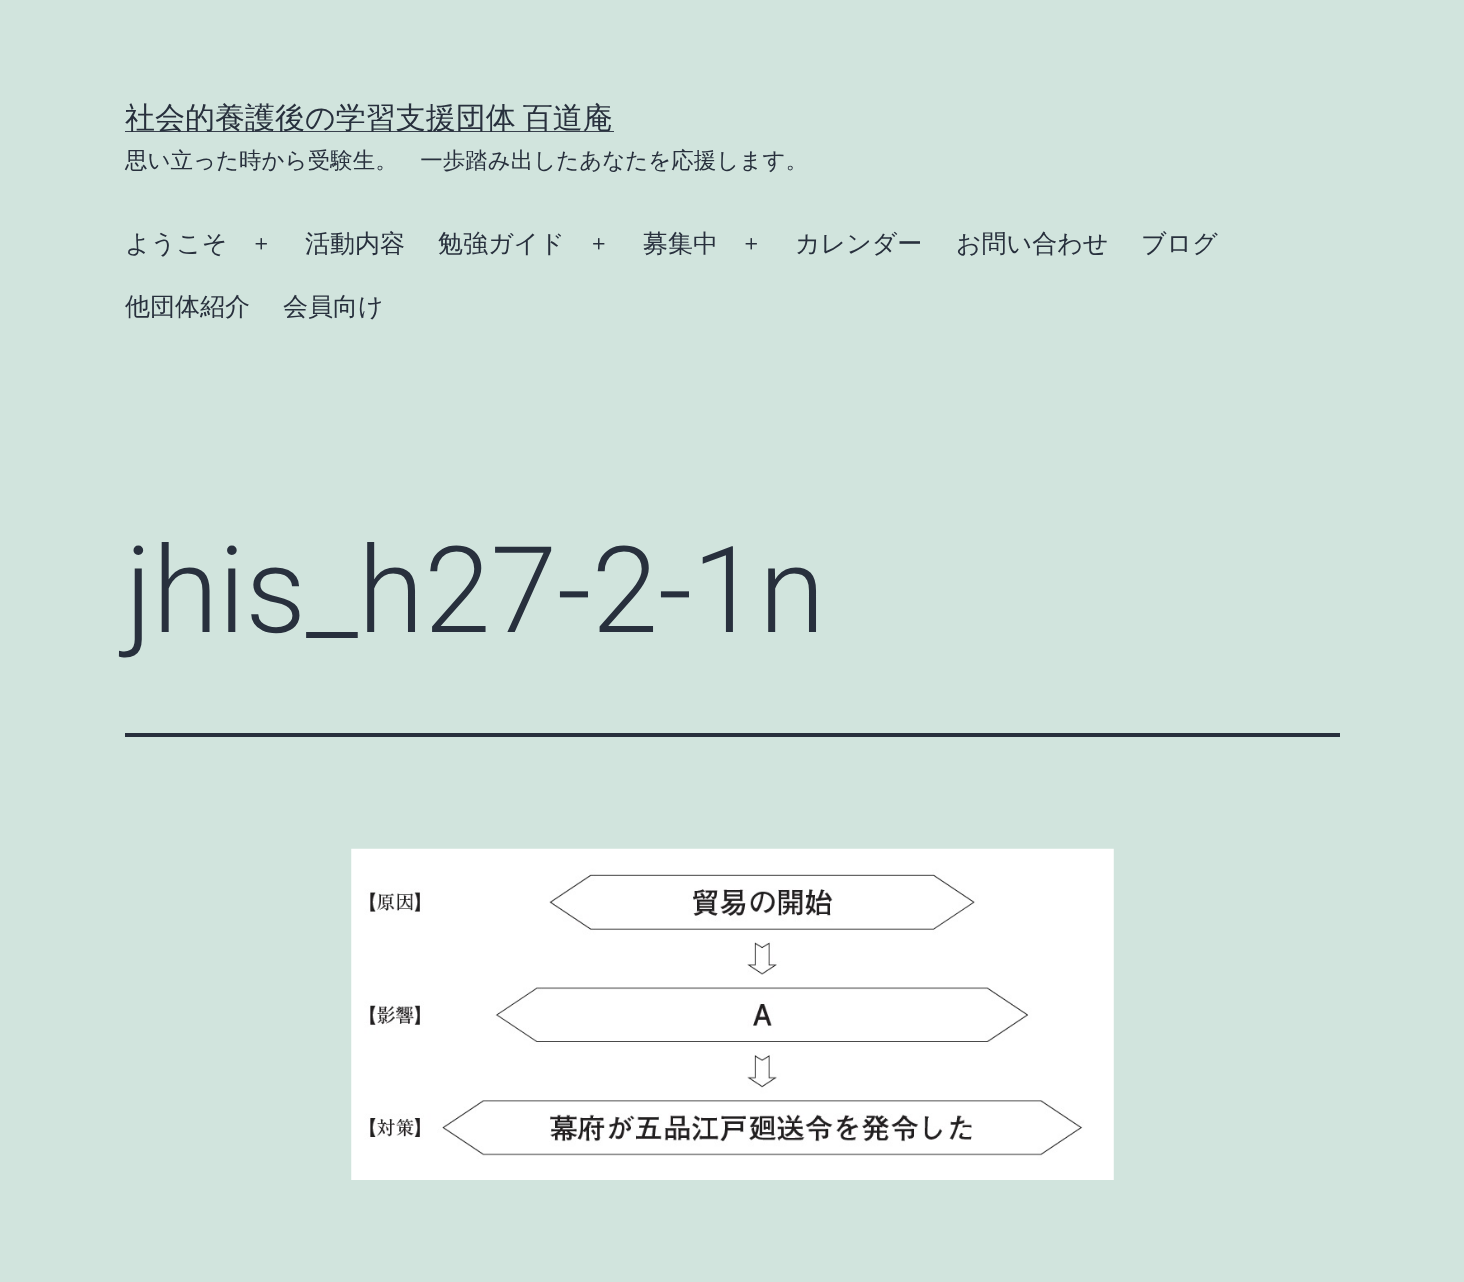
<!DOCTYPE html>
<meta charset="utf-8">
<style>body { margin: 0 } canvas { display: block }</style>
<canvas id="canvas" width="1464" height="1282"></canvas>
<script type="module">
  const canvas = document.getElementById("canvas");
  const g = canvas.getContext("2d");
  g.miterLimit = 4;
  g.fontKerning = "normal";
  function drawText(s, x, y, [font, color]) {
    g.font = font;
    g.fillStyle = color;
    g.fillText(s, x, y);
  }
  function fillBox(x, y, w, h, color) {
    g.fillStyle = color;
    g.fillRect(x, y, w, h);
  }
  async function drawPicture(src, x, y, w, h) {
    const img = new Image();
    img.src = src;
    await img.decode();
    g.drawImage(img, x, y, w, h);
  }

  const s1 = ["500 30px WenQuanYi Zen Hei", "#28303D"];
  const s2 = ["500 22.5px WenQuanYi Zen Hei", "#28303D"];
  const s3 = ["500 25px WenQuanYi Zen Hei", "#28303D"];
  const s4 = ["300 120px Roboto", "#28303D"];

  fillBox(0, 0, 1464, 1282, "#D1E4DD");
  fillBox(125, 131, 489, 1, "#39414D");
  g.wordSpacing = "-2px";
  drawText("社会的養護後の学習支援団体 百道庵", 125, 128, s1);
  g.wordSpacing = "0px";
  drawText("思い立った時から受験生。　一歩踏み出したあなたを応援します。", 125, 168, s2);
  drawText("ようこそ", 125, 252, s3);
  await drawPicture("pic1.png", 255, 238, 12, 12);
  drawText("活動内容", 305, 252, s3);
  drawText("勉強ガイド", 438, 252, s3);
  await drawPicture("pic2.png", 593, 238, 12, 12);
  drawText("募集中", 643, 252, s3);
  await drawPicture("pic1.png", 745, 238, 12, 12);
  drawText("カレンダー", 795, 252, s3);
  drawText("お問い合わせ", 956, 252, s3);
  drawText("ブログ", 1141, 252, s3);
  drawText("他団体紹介", 125, 315, s3);
  drawText("会員向け", 283, 315, s3);
  fillBox(125, 733, 1215, 4, "#28303D");
  drawText("jhis_h27-2-1n", 125, 632, s4);
  await drawPicture("pic3.png", 351, 848, 763, 332);
</script>
